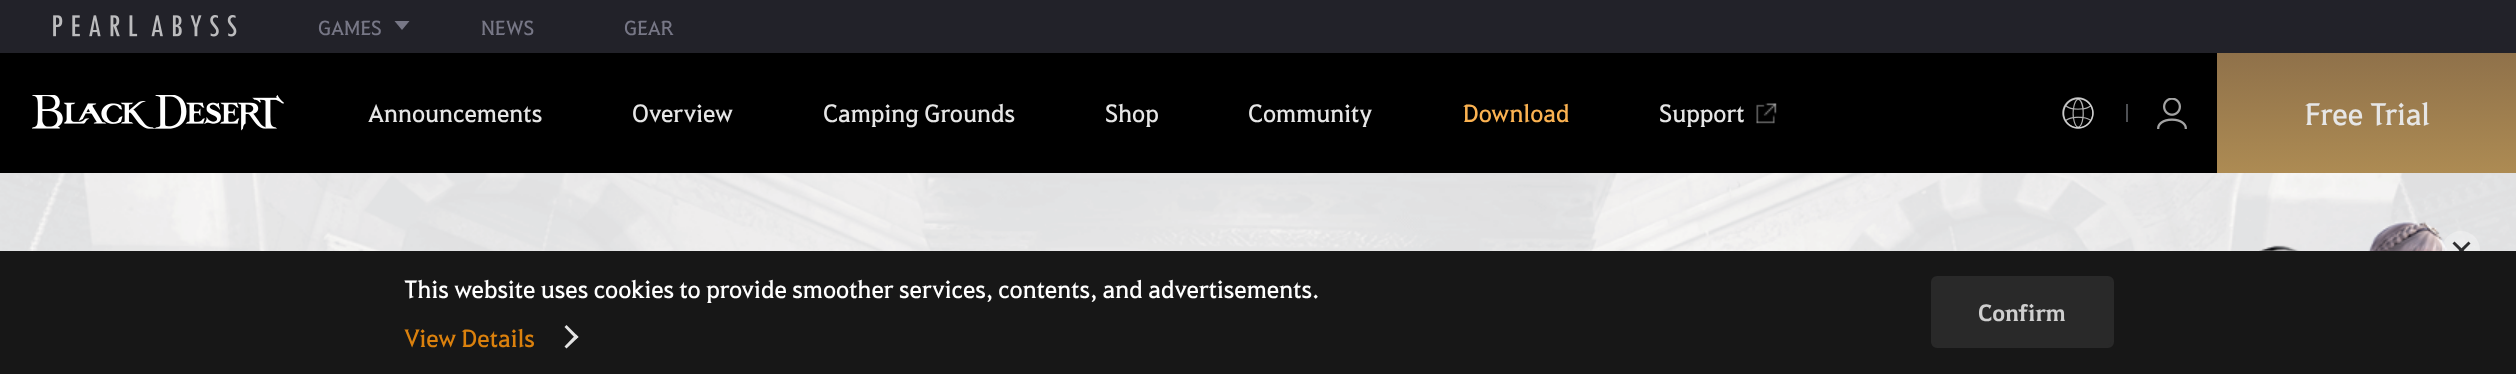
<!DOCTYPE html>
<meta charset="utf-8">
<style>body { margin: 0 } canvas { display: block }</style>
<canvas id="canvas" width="2516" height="374"></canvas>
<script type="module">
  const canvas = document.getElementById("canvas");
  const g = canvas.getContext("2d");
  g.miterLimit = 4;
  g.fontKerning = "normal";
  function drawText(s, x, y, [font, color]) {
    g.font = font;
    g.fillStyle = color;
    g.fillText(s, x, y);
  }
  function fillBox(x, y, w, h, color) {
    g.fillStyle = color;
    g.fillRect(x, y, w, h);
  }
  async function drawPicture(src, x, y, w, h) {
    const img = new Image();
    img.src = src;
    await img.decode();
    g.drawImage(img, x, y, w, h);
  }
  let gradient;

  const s1 = ["19.5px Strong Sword", "#777786"];
  const s2 = ["24px Strong Sword", "#E6E6E6"];
  const s3 = ["24px Strong Sword", "#FBB251"];
  const s4 = ["30px Strong Sword", "#E6E6E6"];
  const s5 = ["24px Strong Sword", "#FFFFFF"];
  const s6 = ["24px Strong Sword", "#DB810D"];
  const s7 = ["bold 22.5px Strong Sword", "#CFCFCF"];

  fillBox(0, 0, 2516, 374, "#FFFFFF");
  fillBox(0, 0, 2516, 53, "#222229");
  await drawPicture("pic1.png", 53, 15, 184, 22);
  drawText("GAMES", 318, 35, s1);
  g.beginPath();
  g.moveTo(394.5, 21);
  g.lineTo(409.5, 21);
  g.lineTo(402, 30);
  g.closePath();
  g.fill();
  drawText("NEWS", 481, 35, s1);
  drawText("GEAR", 624, 35, s1);
  fillBox(0, 53, 2217, 120, "#000000");
  await drawPicture("pic2.png", 32, 95, 252, 36);
  drawText("Announcements", 368, 122, s2);
  drawText("Overview", 632, 122, s2);
  drawText("Camping Grounds", 823, 122, s2);
  drawText("Shop", 1105, 122, s2);
  drawText("Community", 1248, 122, s2);
  drawText("Download", 1463, 122, s3);
  drawText("Support", 1659, 122, s2);
  await drawPicture("pic3.png", 1756, 103, 21, 21);
  await drawPicture("pic4.png", 2062, 97, 32, 32);
  fillBox(2126, 104, 2, 18, "#4E5054");
  await drawPicture("pic5.png", 2157, 98, 30, 31);
  gradient = g.createLinearGradient(2367, 52, 2367, 173);
  gradient.addColorStop(0, "#8F714A");
  gradient.addColorStop(1, "#AD8B53");
  g.fillStyle = gradient;
  g.fillRect(2217, 53, 299, 120);
  drawText("Free Trial", 2305, 125, s4);
  await drawPicture("pic6.png", 0, 173, 2516, 78);
  await drawPicture("pic7.png", 2259, 220, 205, 31);
  g.fillStyle = "rgba(255, 255, 255, 0.3)";
  g.beginPath();
  g.arc(2461, 250, 19, 0, Math.PI * 2);
  g.fill();
  g.fillStyle = "#2C2C2E";
  g.beginPath();
  g.moveTo(2468.5, 241.5);
  g.lineTo(2470.5, 243.5);
  g.lineTo(2454.5, 259.5);
  g.lineTo(2452.5, 257);
  g.closePath();
  g.fill();
  g.beginPath();
  g.moveTo(2452.5, 243.5);
  g.lineTo(2454.5, 241.5);
  g.lineTo(2470.5, 257);
  g.lineTo(2468.5, 259.5);
  g.closePath();
  g.fill();
  fillBox(0, 251, 2516, 123, "#171717");
  drawText("This website uses cookies to provide smoother services, contents, and advertisements.", 404, 298, s5);
  drawText("View Details", 404, 347, s6);
  g.fillStyle = "#E4E4E4";
  g.beginPath();
  g.moveTo(566.5, 325);
  g.lineTo(578.5, 337);
  g.lineTo(576, 339);
  g.lineTo(564.5, 327);
  g.closePath();
  g.fill();
  g.beginPath();
  g.moveTo(576, 334.5);
  g.lineTo(578.5, 337);
  g.lineTo(566.5, 348.5);
  g.lineTo(564.5, 346.5);
  g.closePath();
  g.fill();
  g.fillStyle = "#292929";
  g.beginPath();
  g.roundRect(1932.5, 277.5, 180, 69, 4.5);
  g.fill();
  g.strokeStyle = "#292929";
  g.lineWidth = 3;
  g.stroke();
  drawText("Confirm", 1978, 321, s7);
</script>
